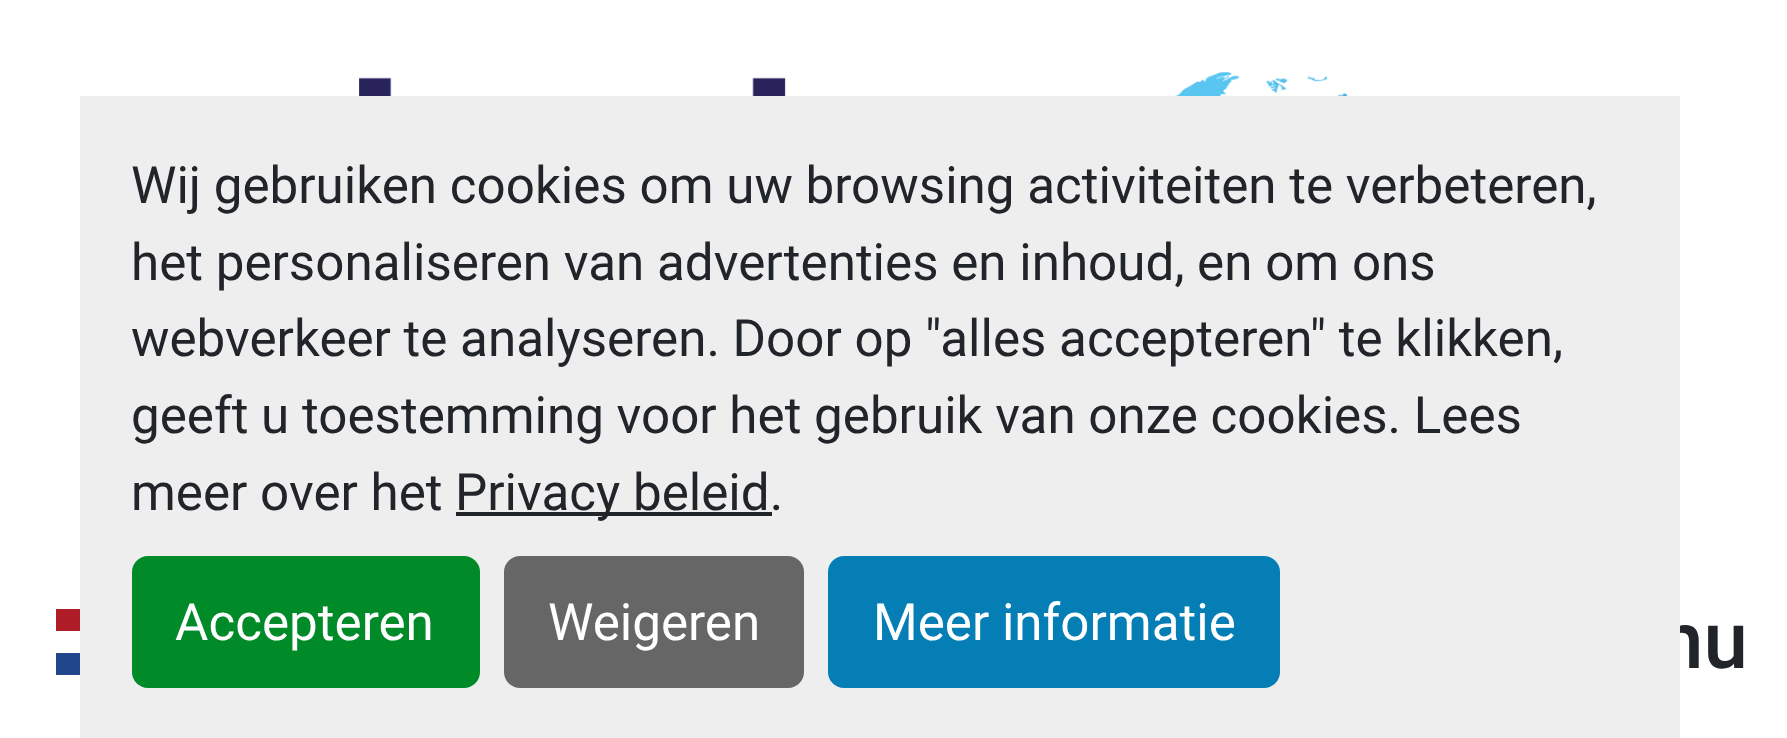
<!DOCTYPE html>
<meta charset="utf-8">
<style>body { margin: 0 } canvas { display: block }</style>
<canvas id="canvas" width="1787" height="738"></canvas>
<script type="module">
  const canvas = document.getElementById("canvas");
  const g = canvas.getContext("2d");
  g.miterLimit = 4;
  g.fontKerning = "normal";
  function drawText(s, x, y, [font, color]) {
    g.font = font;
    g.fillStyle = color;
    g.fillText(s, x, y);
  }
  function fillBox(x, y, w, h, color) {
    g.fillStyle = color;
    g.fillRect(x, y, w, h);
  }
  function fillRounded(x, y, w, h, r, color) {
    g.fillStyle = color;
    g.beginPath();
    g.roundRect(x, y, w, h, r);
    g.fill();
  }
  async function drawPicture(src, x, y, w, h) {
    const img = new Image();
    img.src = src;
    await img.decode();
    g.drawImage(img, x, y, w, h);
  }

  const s1 = ["500 80px Roboto", "#212529"];
  const s2 = ["51.2px Roboto", "#212529"];
  const s3 = ["51.2px Roboto", "#FFFFFF"];

  fillBox(0, 0, 1787, 738, "#FFFFFF");
  drawText("nu", 1659, 668, s1);
  fillBox(80, 96, 1600, 642, "#EEEEEE");
  drawText("Wij gebruiken cookies om uw browsing activiteiten te verbeteren,", 131, 203, s2);
  drawText("het personaliseren van advertenties en inhoud, en om ons", 131, 280, s2);
  drawText("webverkeer te analyseren. Door op \"alles accepteren\" te klikken,", 131, 356, s2);
  drawText("geeft u toestemming voor het gebruik van onze cookies. Lees", 131, 433, s2);
  drawText("meer over het", 131, 510, s2);
  fillBox(456, 512, 316, 4, "#212529");
  drawText("Privacy beleid.", 455, 510, s2);
  fillRounded(132, 556, 348, 132, 16, "#008A28");
  drawText("Accepteren", 175, 640, s3);
  fillRounded(504, 556, 300, 132, 16, "#666666");
  drawText("Weigeren", 548, 640, s3);
  fillRounded(828, 556, 452, 132, 16, "#057EB6");
  drawText("Meer informatie", 873, 640, s3);
  await drawPicture("pic1.png", 359, 72, 994, 24);
  fillBox(56, 609, 24, 22, "#AE1C28");
  fillBox(56, 653, 24, 22, "#21468B");
</script>
